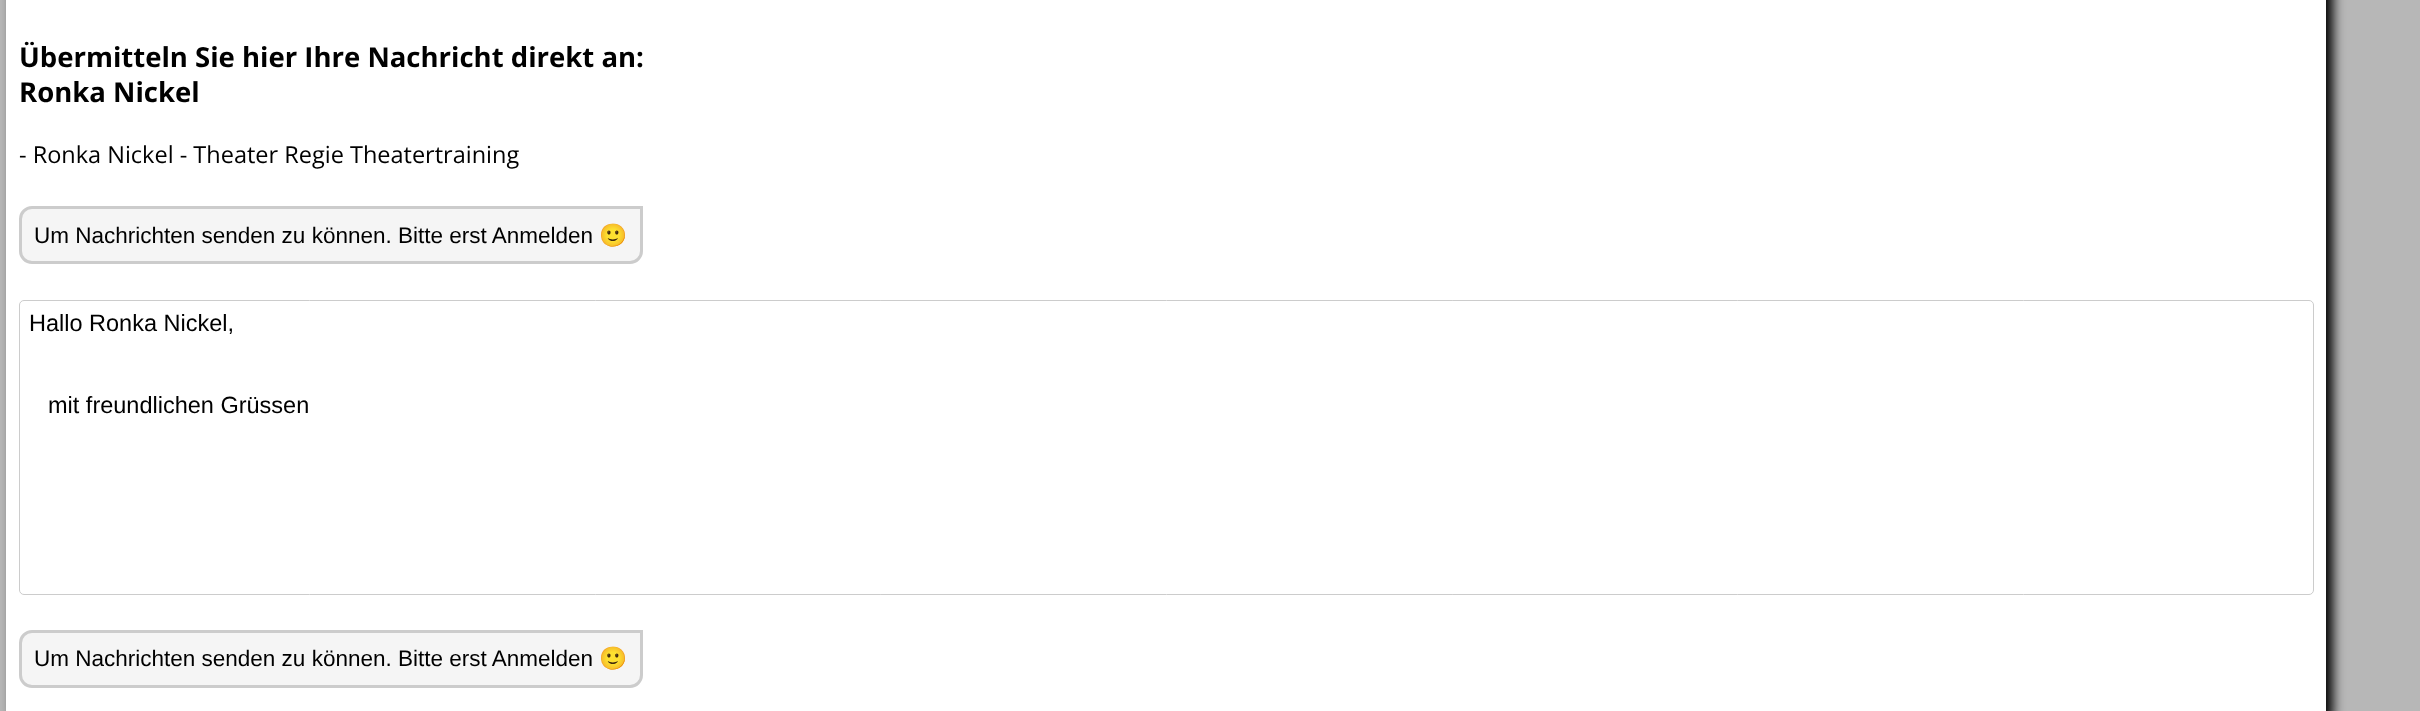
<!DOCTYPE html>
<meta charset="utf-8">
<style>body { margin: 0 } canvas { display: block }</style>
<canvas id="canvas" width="2420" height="711"></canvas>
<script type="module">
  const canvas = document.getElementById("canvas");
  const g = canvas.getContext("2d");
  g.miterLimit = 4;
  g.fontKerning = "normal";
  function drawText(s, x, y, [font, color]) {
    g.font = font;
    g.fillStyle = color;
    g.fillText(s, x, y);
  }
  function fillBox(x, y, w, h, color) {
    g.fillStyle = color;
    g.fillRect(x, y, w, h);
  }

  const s1 = ["bold 27.5px Open Sans", "#000000"];
  const s2 = ["23.5px Open Sans", "#000000"];
  const s3 = ["22.5px Liberation Sans", "#000000"];
  const s4 = ["22.5px Noto Color Emoji", "#000000"];
  const s5 = ["23.5px Liberation Sans", "#000000"];

  fillBox(0, 0, 2420, 711, "#B7B7B7");
  g.fillStyle = "#000000";
  g.filter = "blur(6px)";
  g.beginPath();
  g.roundRect(13, -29, 2320, 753, 11);
  g.fill();
  g.filter = "none";
  fillBox(6, 0, 2320, 711, "#FFFFFF");
  drawText("Übermitteln Sie hier Ihre Nachricht direkt an:", 19, 67, s1);
  drawText("Ronka Nickel", 19, 102, s1);
  drawText("- Ronka Nickel - Theater Regie Theatertraining", 19, 163, s2);
  g.fillStyle = "#F5F5F5";
  g.beginPath();
  g.roundRect(20.5, 207.5, 621, 55, [11.5, 0, 11.5, 11.5]);
  g.fill();
  g.strokeStyle = "#CCCCCC";
  g.lineWidth = 3;
  g.stroke();
  drawText("Um Nachrichten senden zu können. Bitte erst Anmelden", 34, 243, s3);
  drawText("🙂", 599, 243, s4);
  g.beginPath();
  g.roundRect(19.5, 300.5, 2294, 294, 4.5);
  g.lineWidth = 1;
  g.stroke();
  drawText("Hallo Ronka Nickel,", 29, 331, s5);
  drawText("mit freundlichen Grüssen", 48, 413, s5);
  g.fillStyle = "#F5F5F5";
  g.beginPath();
  g.roundRect(20.5, 631.5, 621, 55, [11.5, 0, 11.5, 11.5]);
  g.fill();
  g.lineWidth = 3;
  g.stroke();
  drawText("Um Nachrichten senden zu können. Bitte erst Anmelden", 34, 666, s3);
  drawText("🙂", 599, 666, s4);
</script>
